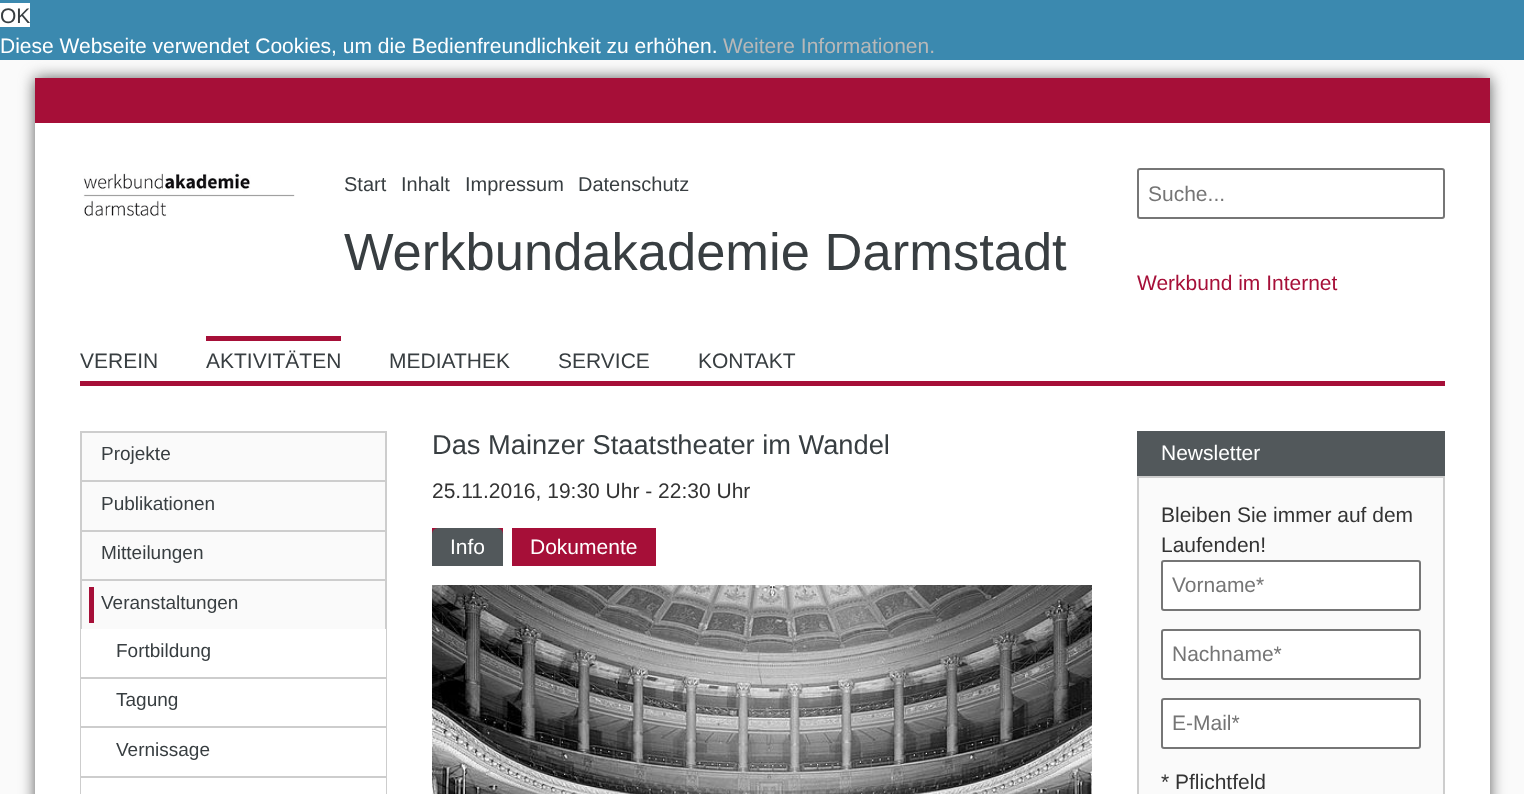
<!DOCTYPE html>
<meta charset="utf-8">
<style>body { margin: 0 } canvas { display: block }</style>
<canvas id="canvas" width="1524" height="794"></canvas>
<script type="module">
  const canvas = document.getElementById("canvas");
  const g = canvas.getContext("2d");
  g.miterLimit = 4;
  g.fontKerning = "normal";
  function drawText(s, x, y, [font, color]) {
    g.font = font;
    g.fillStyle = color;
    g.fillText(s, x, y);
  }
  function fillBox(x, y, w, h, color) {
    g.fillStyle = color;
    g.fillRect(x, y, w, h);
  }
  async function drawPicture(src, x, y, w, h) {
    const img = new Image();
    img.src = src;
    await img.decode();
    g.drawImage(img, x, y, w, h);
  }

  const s1 = ["21px Liberation Sans", "#383E41"];
  const s2 = ["21px Liberation Sans", "#FFFFFF"];
  const s3 = ["21px Liberation Sans", "#B8B8B8"];
  const s4 = ["20px Liberation Sans", "#383E41"];
  const s5 = ["52.5px Liberation Sans", "#383E41"];
  const s6 = ["21px Liberation Sans", "#757575"];
  const s7 = ["21px Liberation Sans", "#A60F38"];
  const s8 = ["19px Liberation Sans", "#383E41"];
  const s9 = ["27.25px Liberation Sans", "#383E41"];
  const s10 = ["21px Liberation Sans", "#333333"];

  fillBox(0, 0, 1524, 794, "#FAFAFA");
  fillBox(0, 0, 1524, 60, "#3B89AF");
  fillBox(0, 3, 30, 24, "#FFFFFF");
  drawText("OK", 0, 23, s1);
  g.fillStyle = "#5D5D5D";
  g.filter = "blur(7.5px)";
  g.beginPath();
  g.rect(35, 78, 1455, 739);
  g.fill();
  g.filter = "none";
  drawText("Diese Webseite verwendet Cookies, um die Bedienfreundlichkeit zu erhöhen.", 0, 53, s2);
  drawText("Weitere Informationen.", 723, 53, s3);
  fillBox(35, 123, 1455, 671, "#FFFFFF");
  fillBox(35, 78, 1455, 45, "#A60F38");
  await drawPicture("pic1.png", 83, 173, 212, 44);
  drawText("Start", 344, 191, s4);
  drawText("Inhalt", 401, 191, s4);
  drawText("Impressum", 465, 191, s4);
  drawText("Datenschutz", 578, 191, s4);
  drawText("Werkbundakademie Darmstadt", 344, 270, s5);
  g.beginPath();
  g.roundRect(1138, 169, 306, 49, 2);
  g.strokeStyle = "#767676";
  g.lineWidth = 2;
  g.stroke();
  drawText("Suche...", 1148, 201, s6);
  drawText("Werkbund im Internet", 1137, 290, s7);
  fillBox(80, 381, 1365, 5, "#A60F38");
  drawText("VEREIN", 80, 368, s1);
  fillBox(206, 336, 135, 5, "#A60F38");
  drawText("AKTIVITÄTEN", 206, 368, s1);
  drawText("MEDIATHEK", 389, 368, s1);
  drawText("SERVICE", 558, 368, s1);
  drawText("KONTAKT", 698, 368, s1);
  fillBox(82, 433, 303, 196, "#FAFAFA");
  g.strokeStyle = "#CDCDCD";
  g.strokeRect(81, 432, 305, 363);
  drawText("Projekte", 101, 460, s8);
  fillBox(81, 480, 305, 2, "#CDCDCD");
  drawText("Publikationen", 101, 510, s8);
  fillBox(81, 530, 305, 2, "#CDCDCD");
  drawText("Mitteilungen", 101, 559, s8);
  fillBox(81, 579, 305, 2, "#CDCDCD");
  fillBox(89, 587, 5, 36, "#A60F38");
  drawText("Veranstaltungen", 101, 609, s8);
  fillBox(81, 629, 305, 165, "#FFFFFF");
  drawText("Fortbildung", 116, 657, s8);
  fillBox(81, 677, 305, 2, "#CDCDCD");
  drawText("Tagung", 116, 706, s8);
  fillBox(81, 726, 305, 2, "#CDCDCD");
  drawText("Vernissage", 116, 756, s8);
  fillBox(81, 776, 305, 2, "#CDCDCD");
  drawText("Das Mainzer Staatstheater im Wandel", 432, 454, s9);
  drawText("25.11.2016, 19:30 Uhr - 22:30 Uhr", 432, 498, s10);
  fillBox(432, 528, 71, 6, "#A60F38");
  g.fillStyle = "#52585B";
  g.beginPath();
  g.roundRect(433, 529, 69, 36, [5, 5, 0, 0]);
  g.fill();
  g.strokeStyle = "#52585B";
  g.stroke();
  drawText("Info", 450, 554, s2);
  fillBox(512, 528, 144, 38, "#A60F38");
  drawText("Dokumente", 530, 554, s2);
  await drawPicture("pic2.png", 432, 585, 660, 209);
  fillBox(1137, 431, 308, 45, "#52585B");
  drawText("Newsletter", 1161, 460, s2);
  g.fillStyle = "#FAFAFA";
  g.beginPath();
  g.rect(1138, 477, 306, 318);
  g.fill();
  g.strokeStyle = "#CDCDCD";
  g.stroke();
  drawText("Bleiben Sie immer auf dem", 1161, 522, s10);
  drawText("Laufenden!", 1161, 552, s10);
  g.fillStyle = "#FFFFFF";
  g.beginPath();
  g.roundRect(1162, 561, 258, 49, 2);
  g.fill();
  g.strokeStyle = "#767676";
  g.stroke();
  drawText("Vorname*", 1172, 592, s6);
  g.fillStyle = "#FFFFFF";
  g.beginPath();
  g.roundRect(1162, 630, 258, 49, 2);
  g.fill();
  g.stroke();
  drawText("Nachname*", 1172, 661, s6);
  g.fillStyle = "#FFFFFF";
  g.beginPath();
  g.roundRect(1162, 699, 258, 49, 2);
  g.fill();
  g.stroke();
  drawText("E-Mail*", 1172, 730, s6);
  drawText("* Pflichtfeld", 1161, 789, s10);
</script>
